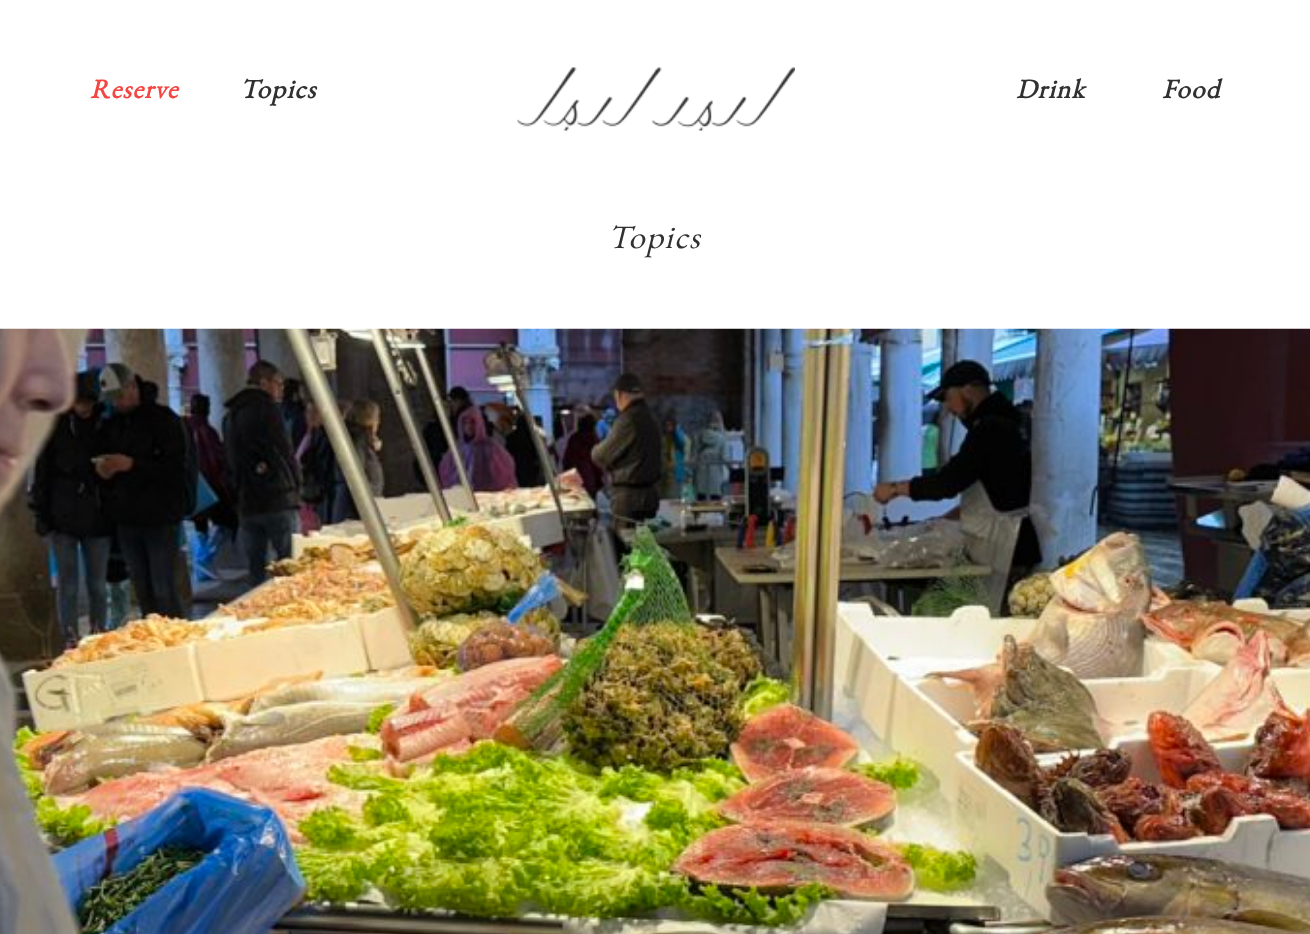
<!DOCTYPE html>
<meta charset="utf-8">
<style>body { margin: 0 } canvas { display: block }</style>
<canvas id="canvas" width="1310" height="934"></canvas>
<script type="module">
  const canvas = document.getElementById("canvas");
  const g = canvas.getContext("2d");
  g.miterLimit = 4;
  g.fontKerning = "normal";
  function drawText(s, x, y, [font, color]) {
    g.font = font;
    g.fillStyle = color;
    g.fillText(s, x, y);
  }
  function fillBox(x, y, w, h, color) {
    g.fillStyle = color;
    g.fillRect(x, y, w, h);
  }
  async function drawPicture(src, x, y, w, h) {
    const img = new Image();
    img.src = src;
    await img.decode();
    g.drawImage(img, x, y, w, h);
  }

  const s1 = ["italic bold 27px EB Garamond", "#F34743"];
  const s2 = ["italic bold 27px EB Garamond", "#313131"];
  const s3 = ["italic 33px EB Garamond", "#313131"];

  fillBox(0, 0, 1310, 934, "#FFFFFF");
  await drawPicture("pic1.png", 517, 67, 278, 64);
  g.letterSpacing = "1.25px";
  drawText("Reserve", 90, 98, s1);
  drawText("Topics", 240, 98, s2);
  drawText("Drink", 1016, 98, s2);
  drawText("Food", 1162, 98, s2);
  g.letterSpacing = "1.5px";
  drawText("Topics", 608, 248, s3);
  await drawPicture("pic2.png", 0, 328, 1310, 606);
</script>
